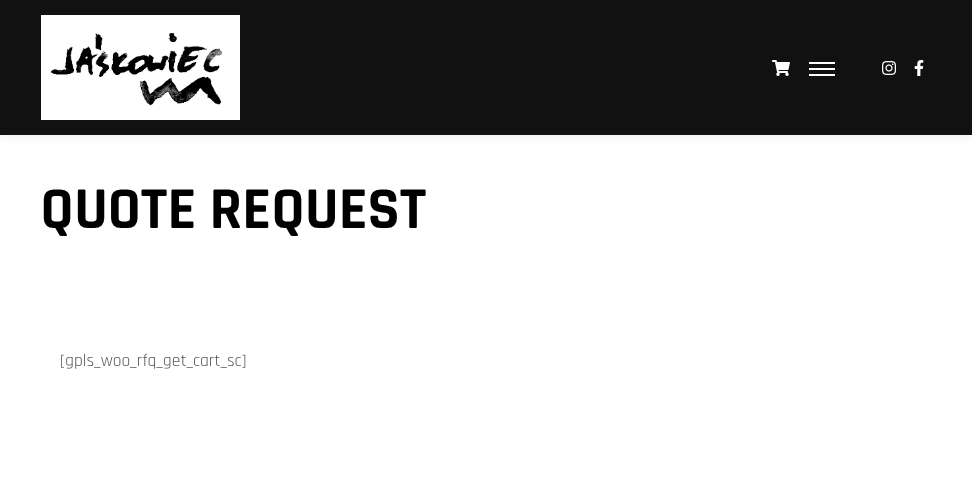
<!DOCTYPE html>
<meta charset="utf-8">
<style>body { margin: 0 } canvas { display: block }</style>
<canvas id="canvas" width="972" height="503"></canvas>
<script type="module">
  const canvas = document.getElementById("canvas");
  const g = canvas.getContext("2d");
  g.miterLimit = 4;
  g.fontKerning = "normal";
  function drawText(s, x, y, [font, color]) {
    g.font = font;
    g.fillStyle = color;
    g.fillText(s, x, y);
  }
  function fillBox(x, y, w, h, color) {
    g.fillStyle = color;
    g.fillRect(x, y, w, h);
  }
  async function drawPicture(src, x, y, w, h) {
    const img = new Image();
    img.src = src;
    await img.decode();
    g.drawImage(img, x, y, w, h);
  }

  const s1 = ["bold 60px Rajdhani", "#000000"];
  const s2 = ["17.6px Rajdhani", "#585858"];

  fillBox(0, 0, 972, 503, "#FFFFFF");
  g.fillStyle = "rgba(0, 0, 0, 0.09)";
  g.filter = "blur(6px)";
  g.beginPath();
  g.rect(0, 0, 972, 135);
  g.fill();
  g.filter = "none";
  fillBox(0, 0, 972, 135, "#111111");
  await drawPicture("pic1.png", 41, 15, 199, 105);
  await drawPicture("pic2.png", 772, 60, 18, 16);
  fillBox(809, 68, 26, 2, "#FFFFFF");
  fillBox(809, 62, 26, 2, "#FFFFFF");
  fillBox(809, 74, 26, 2, "#FFFFFF");
  await drawPicture("pic3.png", 882, 61, 14, 14);
  await drawPicture("pic4.png", 914, 60, 10, 16);
  drawText("QUOTE REQUEST", 40, 228, s1);
  drawText("[gpls_woo_rfq_get_cart_sc]", 60, 366, s2);
</script>
